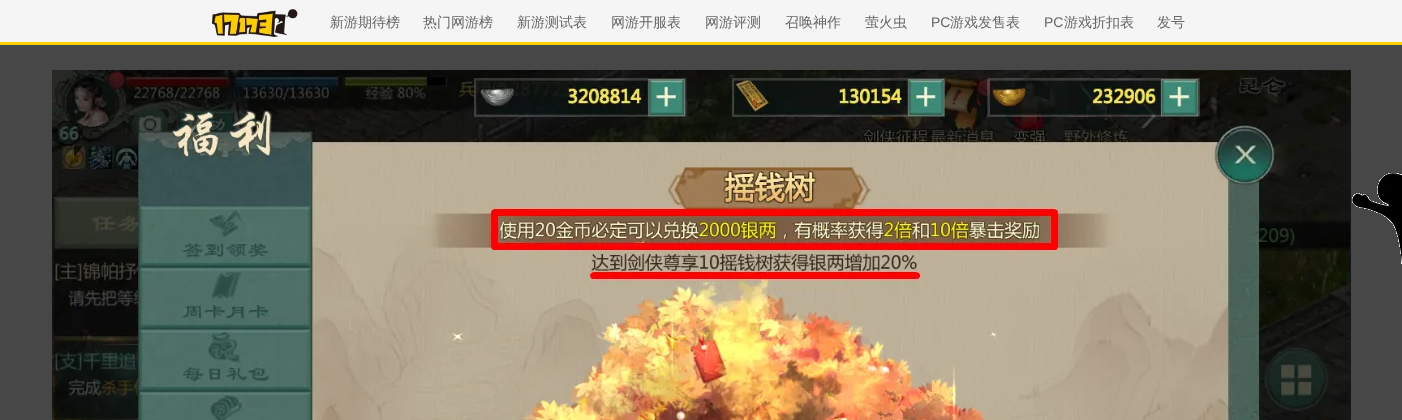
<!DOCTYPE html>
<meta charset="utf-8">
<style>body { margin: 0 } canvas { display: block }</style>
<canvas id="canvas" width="1402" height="420"></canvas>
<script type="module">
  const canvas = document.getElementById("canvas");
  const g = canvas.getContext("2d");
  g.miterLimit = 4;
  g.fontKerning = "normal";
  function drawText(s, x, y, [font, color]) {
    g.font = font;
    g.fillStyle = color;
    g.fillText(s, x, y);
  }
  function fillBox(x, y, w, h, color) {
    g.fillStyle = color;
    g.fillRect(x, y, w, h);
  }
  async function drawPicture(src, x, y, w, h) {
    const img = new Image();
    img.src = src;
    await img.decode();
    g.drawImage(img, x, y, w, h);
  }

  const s1 = ["500 14px WenQuanYi Zen Hei", "#666666"];
  const s2 = ["14px Liberation Sans", "#666666"];

  fillBox(0, 0, 1402, 420, "#474747");
  fillBox(0, 0, 1402, 42, "#F5F5F5");
  fillBox(0, 42, 1402, 3, "#FFCD00");
  await drawPicture("pic1.png", 212, 9, 86, 28);
  drawText("新游期待榜", 330, 27, s1);
  drawText("热门网游榜", 423, 27, s1);
  drawText("新游测试表", 517, 27, s1);
  drawText("网游开服表", 611, 27, s1);
  drawText("网游评测", 705, 27, s1);
  drawText("召唤神作", 785, 27, s1);
  drawText("萤火虫", 865, 27, s1);
  drawText("PC", 931, 27, s2);
  drawText("游戏发售表", 950, 27, s1);
  drawText("PC", 1044, 27, s2);
  drawText("游戏折扣表", 1064, 27, s1);
  drawText("发号", 1157, 27, s1);
  await drawPicture("pic2.png", 52, 70, 1299, 350);
  await drawPicture("pic3.png", 1352, 173, 50, 91);
</script>
